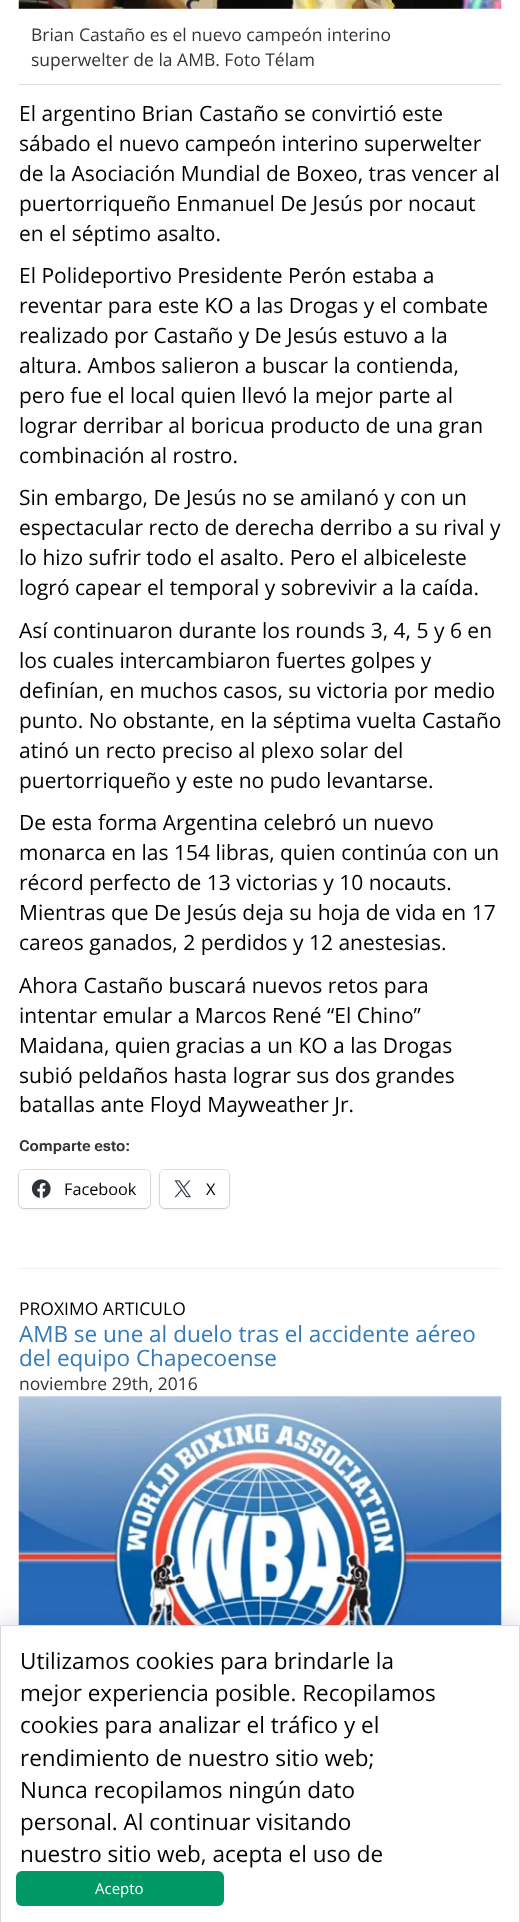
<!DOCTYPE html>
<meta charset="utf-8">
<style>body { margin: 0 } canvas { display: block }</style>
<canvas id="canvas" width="520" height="1922"></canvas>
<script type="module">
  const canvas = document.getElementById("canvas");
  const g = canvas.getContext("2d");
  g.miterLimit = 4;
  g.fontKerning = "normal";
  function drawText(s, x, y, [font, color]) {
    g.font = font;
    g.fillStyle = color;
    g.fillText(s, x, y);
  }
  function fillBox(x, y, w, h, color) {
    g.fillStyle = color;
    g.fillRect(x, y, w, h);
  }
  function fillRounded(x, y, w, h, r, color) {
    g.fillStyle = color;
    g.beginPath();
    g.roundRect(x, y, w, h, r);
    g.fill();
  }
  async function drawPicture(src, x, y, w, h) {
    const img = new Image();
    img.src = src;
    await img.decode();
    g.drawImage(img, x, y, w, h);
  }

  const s1 = ["17.5px Open Sans", "#333333"];
  const s2 = ["21px Open Sans", "#000000"];
  const s3 = ["bold 15px Roboto Flex", "#333333"];
  const s4 = ["16.25px Open Sans", "#000000"];
  const s5 = ["17.5px Open Sans", "#000000"];
  const s6 = ["22.5px Open Sans", "#337AB7"];
  const s7 = ["22.5px Open Sans", "#000000"];
  const s8 = ["15px Open Sans", "#FFFFFF"];

  fillBox(0, 0, 520, 1922, "#FFFFFF");
  await drawPicture("pic1.png", 18, 0, 484, 9);
  fillBox(19, 84, 482, 1, "#DDDDDD");
  drawText("Brian Castaño es el nuevo campeón interino", 31, 41, s1);
  drawText("superwelter de la AMB. Foto Télam", 31, 66, s1);
  drawText("El argentino Brian Castaño se convirtió este", 19, 121, s2);
  drawText("sábado el nuevo campeón interino superwelter", 19, 151, s2);
  drawText("de la Asociación Mundial de Boxeo, tras vencer al", 19, 181, s2);
  drawText("puertorriqueño Enmanuel De Jesús por nocaut", 19, 211, s2);
  drawText("en el séptimo asalto.", 19, 241, s2);
  drawText("El Polideportivo Presidente Perón estaba a", 19, 283, s2);
  drawText("reventar para este KO a las Drogas y el combate", 19, 313, s2);
  drawText("realizado por Castaño y De Jesús estuvo a la", 19, 343, s2);
  drawText("altura. Ambos salieron a buscar la contienda,", 19, 373, s2);
  drawText("pero fue el local quien llevó la mejor parte al", 19, 403, s2);
  drawText("lograr derribar al boricua producto de una gran", 19, 433, s2);
  drawText("combinación al rostro.", 19, 463, s2);
  drawText("Sin embargo, De Jesús no se amilanó y con un", 19, 505, s2);
  drawText("espectacular recto de derecha derribo a su rival y", 19, 535, s2);
  drawText("lo hizo sufrir todo el asalto. Pero el albiceleste", 19, 565, s2);
  drawText("logró capear el temporal y sobrevivir a la caída.", 19, 595, s2);
  drawText("Así continuaron durante los rounds 3, 4, 5 y 6 en", 19, 638, s2);
  drawText("los cuales intercambiaron fuertes golpes y", 19, 668, s2);
  drawText("definían, en muchos casos, su victoria por medio", 19, 698, s2);
  drawText("punto. No obstante, en la séptima vuelta Castaño", 19, 728, s2);
  drawText("atinó un recto preciso al plexo solar del", 19, 758, s2);
  drawText("puertorriqueño y este no pudo levantarse.", 19, 788, s2);
  drawText("De esta forma Argentina celebró un nuevo", 19, 830, s2);
  drawText("monarca en las 154 libras, quien continúa con un", 19, 860, s2);
  drawText("récord perfecto de 13 victorias y 10 nocauts.", 19, 890, s2);
  drawText("Mientras que De Jesús deja su hoja de vida en 17", 19, 920, s2);
  drawText("careos ganados, 2 perdidos y 12 anestesias.", 19, 950, s2);
  drawText("Ahora Castaño buscará nuevos retos para", 19, 993, s2);
  drawText("intentar emular a Marcos René “El Chino”", 19, 1023, s2);
  drawText("Maidana, quien gracias a un KO a las Drogas", 19, 1053, s2);
  drawText("subió peldaños hasta lograr sus dos grandes", 19, 1083, s2);
  drawText("batallas ante Floyd Mayweather Jr.", 19, 1112, s2);
  drawText("Comparte esto:", 19, 1151, s3);
  g.beginPath();
  g.roundRect(18.5, 1169.5, 132, 39, 5.5);
  g.strokeStyle = "#E0E0E0";
  g.stroke();
  g.fillStyle = "rgba(0, 0, 0, 0.12)";
  g.filter = "blur(1px)";
  g.beginPath();
  g.roundRect(19, 1171, 131, 38, 5);
  g.fill();
  g.filter = "none";
  fillRounded(19, 1170, 131, 38, 5, "#FFFFFF");
  await drawPicture("pic2.png", 31, 1179, 20, 19);
  drawText("Facebook", 64, 1195, s4);
  g.beginPath();
  g.roundRect(159.5, 1169.5, 70, 39, 5.5);
  g.stroke();
  g.fillStyle = "rgba(0, 0, 0, 0.12)";
  g.filter = "blur(1px)";
  g.beginPath();
  g.roundRect(160, 1171, 69, 38, 5);
  g.fill();
  g.filter = "none";
  fillRounded(160, 1170, 69, 38, 5, "#FFFFFF");
  await drawPicture("pic3.png", 174, 1180, 17, 18);
  drawText("X", 206, 1195, s4);
  fillBox(19, 1268, 482, 1, "#EEEEEE");
  drawText("PROXIMO ARTICULO", 19, 1315, s5);
  drawText("AMB se une al duelo tras el accidente aéreo", 19, 1342, s6);
  drawText("del equipo Chapecoense", 19, 1366, s6);
  drawText("noviembre 29th, 2016", 19, 1390, s1);
  await drawPicture("pic4.png", 18, 1396, 484, 229);
  g.fillStyle = "rgba(23, 43, 99, 0.4)";
  g.filter = "blur(17.5px)";
  g.beginPath();
  g.rect(0, 1634, 520, 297);
  g.fill();
  g.filter = "none";
  g.fillStyle = "#FFFFFF";
  g.beginPath();
  g.rect(0.5, 1625.5, 519, 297);
  g.fill();
  g.strokeStyle = "#D9D9D9";
  g.stroke();
  drawText("Utilizamos cookies para brindarle la", 20, 1669, s7);
  drawText("mejor experiencia posible. Recopilamos", 20, 1701, s7);
  drawText("cookies para analizar el tráfico y el", 20, 1733, s7);
  drawText("rendimiento de nuestro sitio web;", 20, 1766, s7);
  drawText("Nunca recopilamos ningún dato", 20, 1798, s7);
  drawText("personal. Al continuar visitando", 20, 1830, s7);
  drawText("nuestro sitio web, acepta el uso de", 20, 1862, s7);
  fillRounded(16, 1871, 208, 35, 6, "#009865");
  drawText("Acepto", 95, 1894, s8);
</script>
